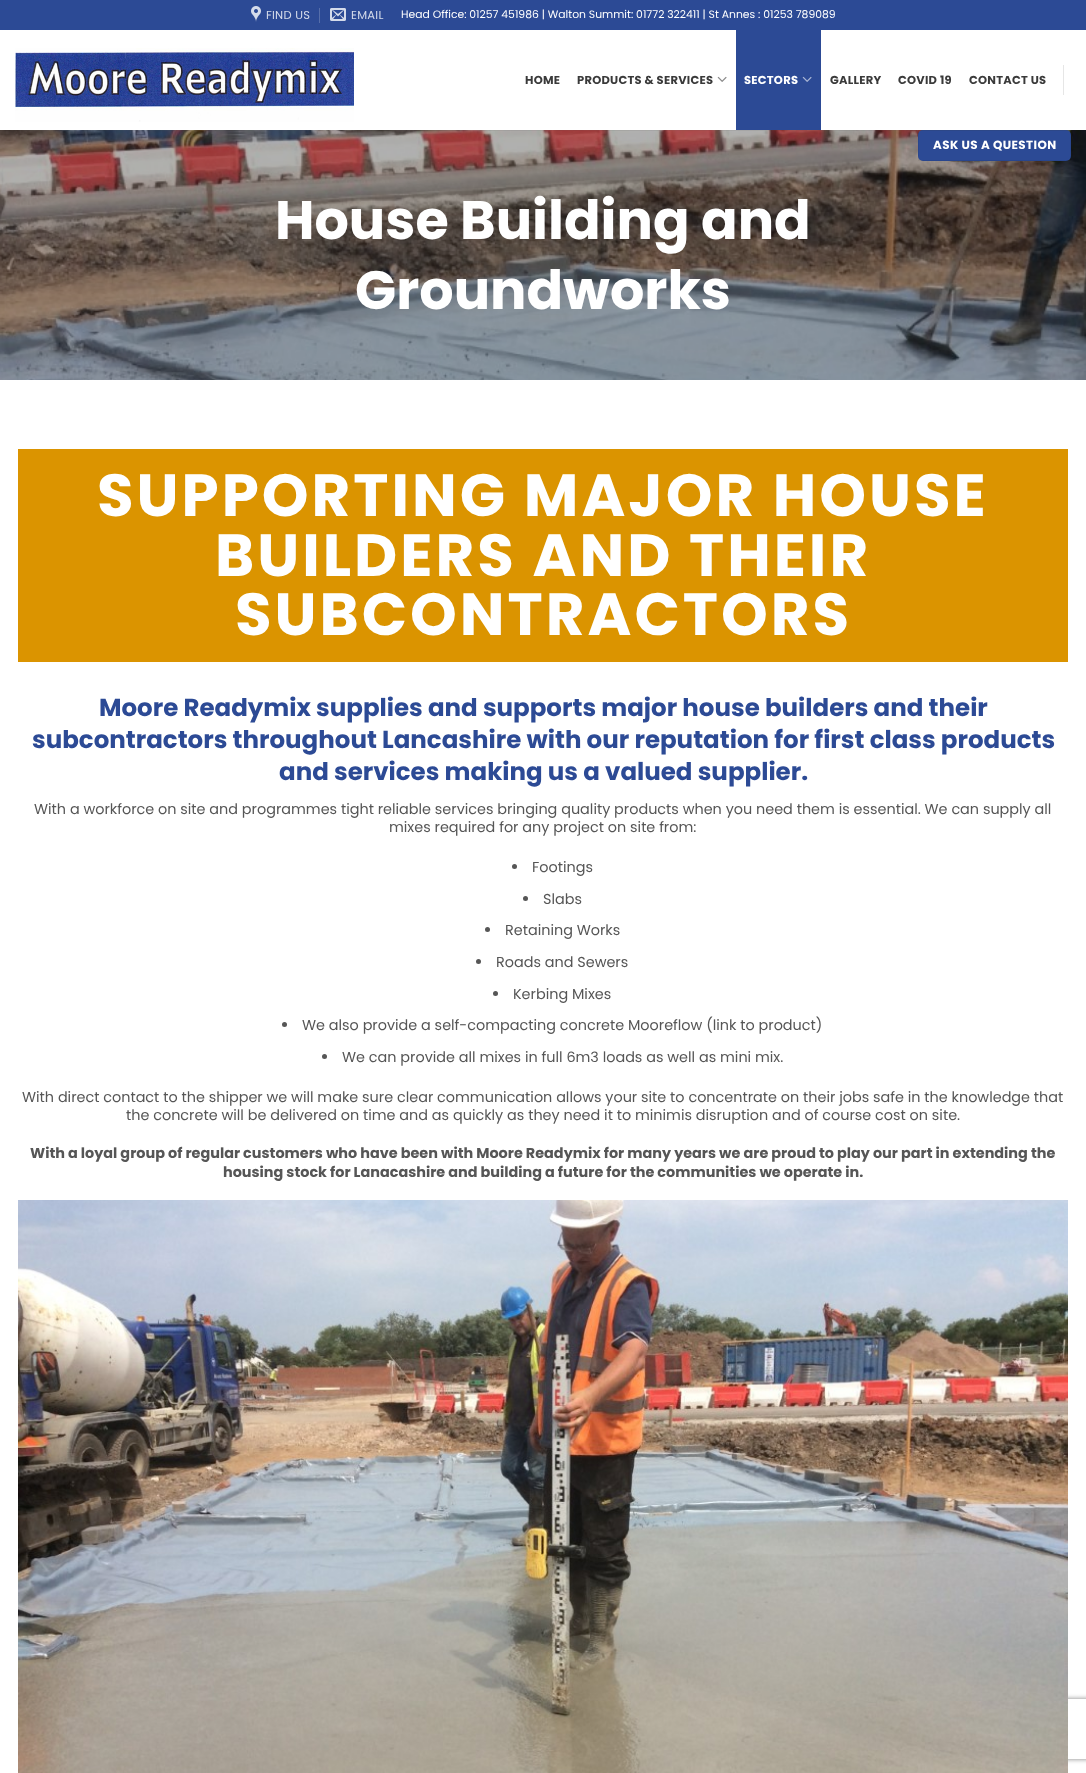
<!DOCTYPE html>
<meta charset="utf-8">
<style>body { margin: 0 } canvas { display: block }</style>
<canvas id="canvas" width="1086" height="1773"></canvas>
<script type="module">
  const canvas = document.getElementById("canvas");
  const g = canvas.getContext("2d");
  g.miterLimit = 4;
  g.fontKerning = "normal";
  function drawText(s, x, y, [font, color]) {
    g.font = font;
    g.fillStyle = color;
    g.fillText(s, x, y);
  }
  function fillBox(x, y, w, h, color) {
    g.fillStyle = color;
    g.fillRect(x, y, w, h);
  }
  function fillRounded(x, y, w, h, r, color) {
    g.fillStyle = color;
    g.beginPath();
    g.roundRect(x, y, w, h, r);
    g.fill();
  }
  async function drawPicture(src, x, y, w, h) {
    const img = new Image();
    img.src = src;
    await img.decode();
    g.drawImage(img, x, y, w, h);
  }

  const s1 = ["11.5px Poppins", "#D5DBEA"];
  const s2 = ["10.8px Poppins", "#FFFFFF"];
  const s3 = ["bold 11.5px Poppins", "#3A3A3A"];
  const s4 = ["bold 11.5px Poppins", "#FFFFFF"];
  const s5 = ["bold 11.9px Poppins", "#FFFFFF"];
  const s6 = ["bold 54px Poppins", "#FFFFFF"];
  const s7 = ["bold 59.5px Poppins", "#FFFFFF"];
  const s8 = ["bold 24.5px Poppins", "#2C4A95"];
  const s9 = ["14.4px Poppins", "#565656"];
  const s10 = ["bold 14.4px Poppins", "#565656"];

  fillBox(0, 0, 1086, 1773, "#FFFFFF");
  fillBox(0, 0, 1086, 30, "#2C4A95");
  await drawPicture("pic1.png", 251, 6, 10, 16);
  g.letterSpacing = "0.25px";
  drawText("FIND US", 266, 19, s1);
  fillBox(319, 8, 1, 15, "#566EAA");
  await drawPicture("pic2.png", 330, 8, 16, 13);
  drawText("EMAIL", 351, 19, s1);
  g.letterSpacing = "0px";
  drawText("Head Office: 01257 451986 | Walton Summit: 01772 322411 | St Annes : 01253 789089", 401, 18, s2);
  await drawPicture("pic3.png", 15, 48, 339, 74);
  g.letterSpacing = "0.25px";
  drawText("HOME", 525, 84, s3);
  drawText("PRODUCTS & SERVICES", 577, 84, s3);
  await drawPicture("pic4.png", 717, 76, 10, 6);
  fillBox(736, 30, 85, 100, "#2C4A95");
  drawText("SECTORS", 744, 84, s4);
  await drawPicture("pic5.png", 802, 76, 10, 6);
  drawText("GALLERY", 830, 84, s3);
  drawText("COVID 19", 898, 84, s3);
  drawText("CONTACT US", 969, 84, s3);
  fillBox(1063, 65, 1, 30, "#E6E6E6");
  await drawPicture("pic6.png", 0, 130, 1086, 250);
  fillRounded(918, 130, 153, 31, 5, "#2C4A95");
  g.strokeStyle = "rgba(0, 0, 0, 0.05)";
  g.strokeRect(918.5, 130.5, 152, 30);
  g.letterSpacing = "0.4px";
  drawText("ASK US A QUESTION", 933, 149, s5);
  fillBox(15, 130, 1056, 1, "rgba(86, 86, 86, 0.1)");
  g.letterSpacing = "0px";
  drawText("House Building and", 275, 239, s6);
  drawText("Groundworks", 355, 309, s6);
  fillBox(18, 449, 1050, 213, "#DB9400");
  g.letterSpacing = "3px";
  drawText("SUPPORTING MAJOR HOUSE", 97, 516, s7);
  drawText("BUILDERS AND THEIR", 215, 576, s7);
  drawText("SUBCONTRACTORS", 235, 635, s7);
  g.letterSpacing = "0px";
  drawText("Moore Readymix supplies and supports major house builders and their", 99, 716, s8);
  drawText("subcontractors throughout Lancashire with our reputation for first class products", 32, 748, s8);
  drawText("and services making us a valued supplier.", 279, 780, s8);
  drawText("With a workforce on site and programmes tight reliable services bringing quality products when you need them is essential. We can supply all", 34, 814, s9);
  drawText("mixes required for any project on site from:", 389, 832, s9);
  g.beginPath();
  g.arc(514.5, 866.5, 2.5, 0, Math.PI * 2);
  g.fill();
  drawText("Footings", 532, 872, s9);
  g.beginPath();
  g.arc(525.5, 898.5, 2.5, 0, Math.PI * 2);
  g.fill();
  drawText("Slabs", 543, 904, s9);
  g.beginPath();
  g.arc(487.5, 929.5, 2.5, 0, Math.PI * 2);
  g.fill();
  drawText("Retaining Works", 505, 935, s9);
  g.beginPath();
  g.arc(478.5, 961.5, 2.5, 0, Math.PI * 2);
  g.fill();
  drawText("Roads and Sewers", 496, 967, s9);
  g.beginPath();
  g.arc(495.5, 993.5, 2.5, 0, Math.PI * 2);
  g.fill();
  drawText("Kerbing Mixes", 513, 999, s9);
  g.beginPath();
  g.arc(284.5, 1024.5, 2.5, 0, Math.PI * 2);
  g.fill();
  drawText("We also provide a self-compacting concrete Mooreflow (link to product)", 302, 1030, s9);
  g.beginPath();
  g.arc(324.5, 1056.5, 2.5, 0, Math.PI * 2);
  g.fill();
  drawText("We can provide all mixes in full 6m3 loads as well as mini mix.", 342, 1062, s9);
  drawText("With direct contact to the shipper we will make sure clear communication allows your site to concentrate on their jobs safe in the knowledge that", 22, 1102, s9);
  drawText("the concrete will be delivered on time and as quickly as they need it to minimis disruption and of course cost on site.", 126, 1120, s9);
  drawText("With a loyal group of regular customers who have been with Moore Readymix for many years we are proud to play our part in extending the", 30, 1158, s10);
  drawText("housing stock for Lanacashire and building a future for the communities we operate in.", 223, 1177, s10);
  g.save();
  g.beginPath();
  g.moveTo(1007, 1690);
  g.lineTo(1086, 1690);
  g.lineTo(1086, 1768);
  g.lineTo(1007, 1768);
  g.closePath();
  g.moveTo(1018, 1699);
  g.lineTo(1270, 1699);
  g.bezierCurveTo(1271, 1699, 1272, 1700, 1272, 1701);
  g.lineTo(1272, 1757);
  g.bezierCurveTo(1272, 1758, 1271, 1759, 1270, 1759);
  g.lineTo(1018, 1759);
  g.bezierCurveTo(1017, 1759, 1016, 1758, 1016, 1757);
  g.lineTo(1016, 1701);
  g.bezierCurveTo(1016, 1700, 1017, 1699, 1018, 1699);
  g.closePath();
  g.clip("evenodd");
  g.fillStyle = "#808080";
  g.filter = "blur(2.5px)";
  g.beginPath();
  g.roundRect(1016, 1699, 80, 60, 2);
  g.fill();
  g.filter = "none";
  g.restore();
  await drawPicture("pic7.png", 18, 1200, 1050, 573);
</script>
